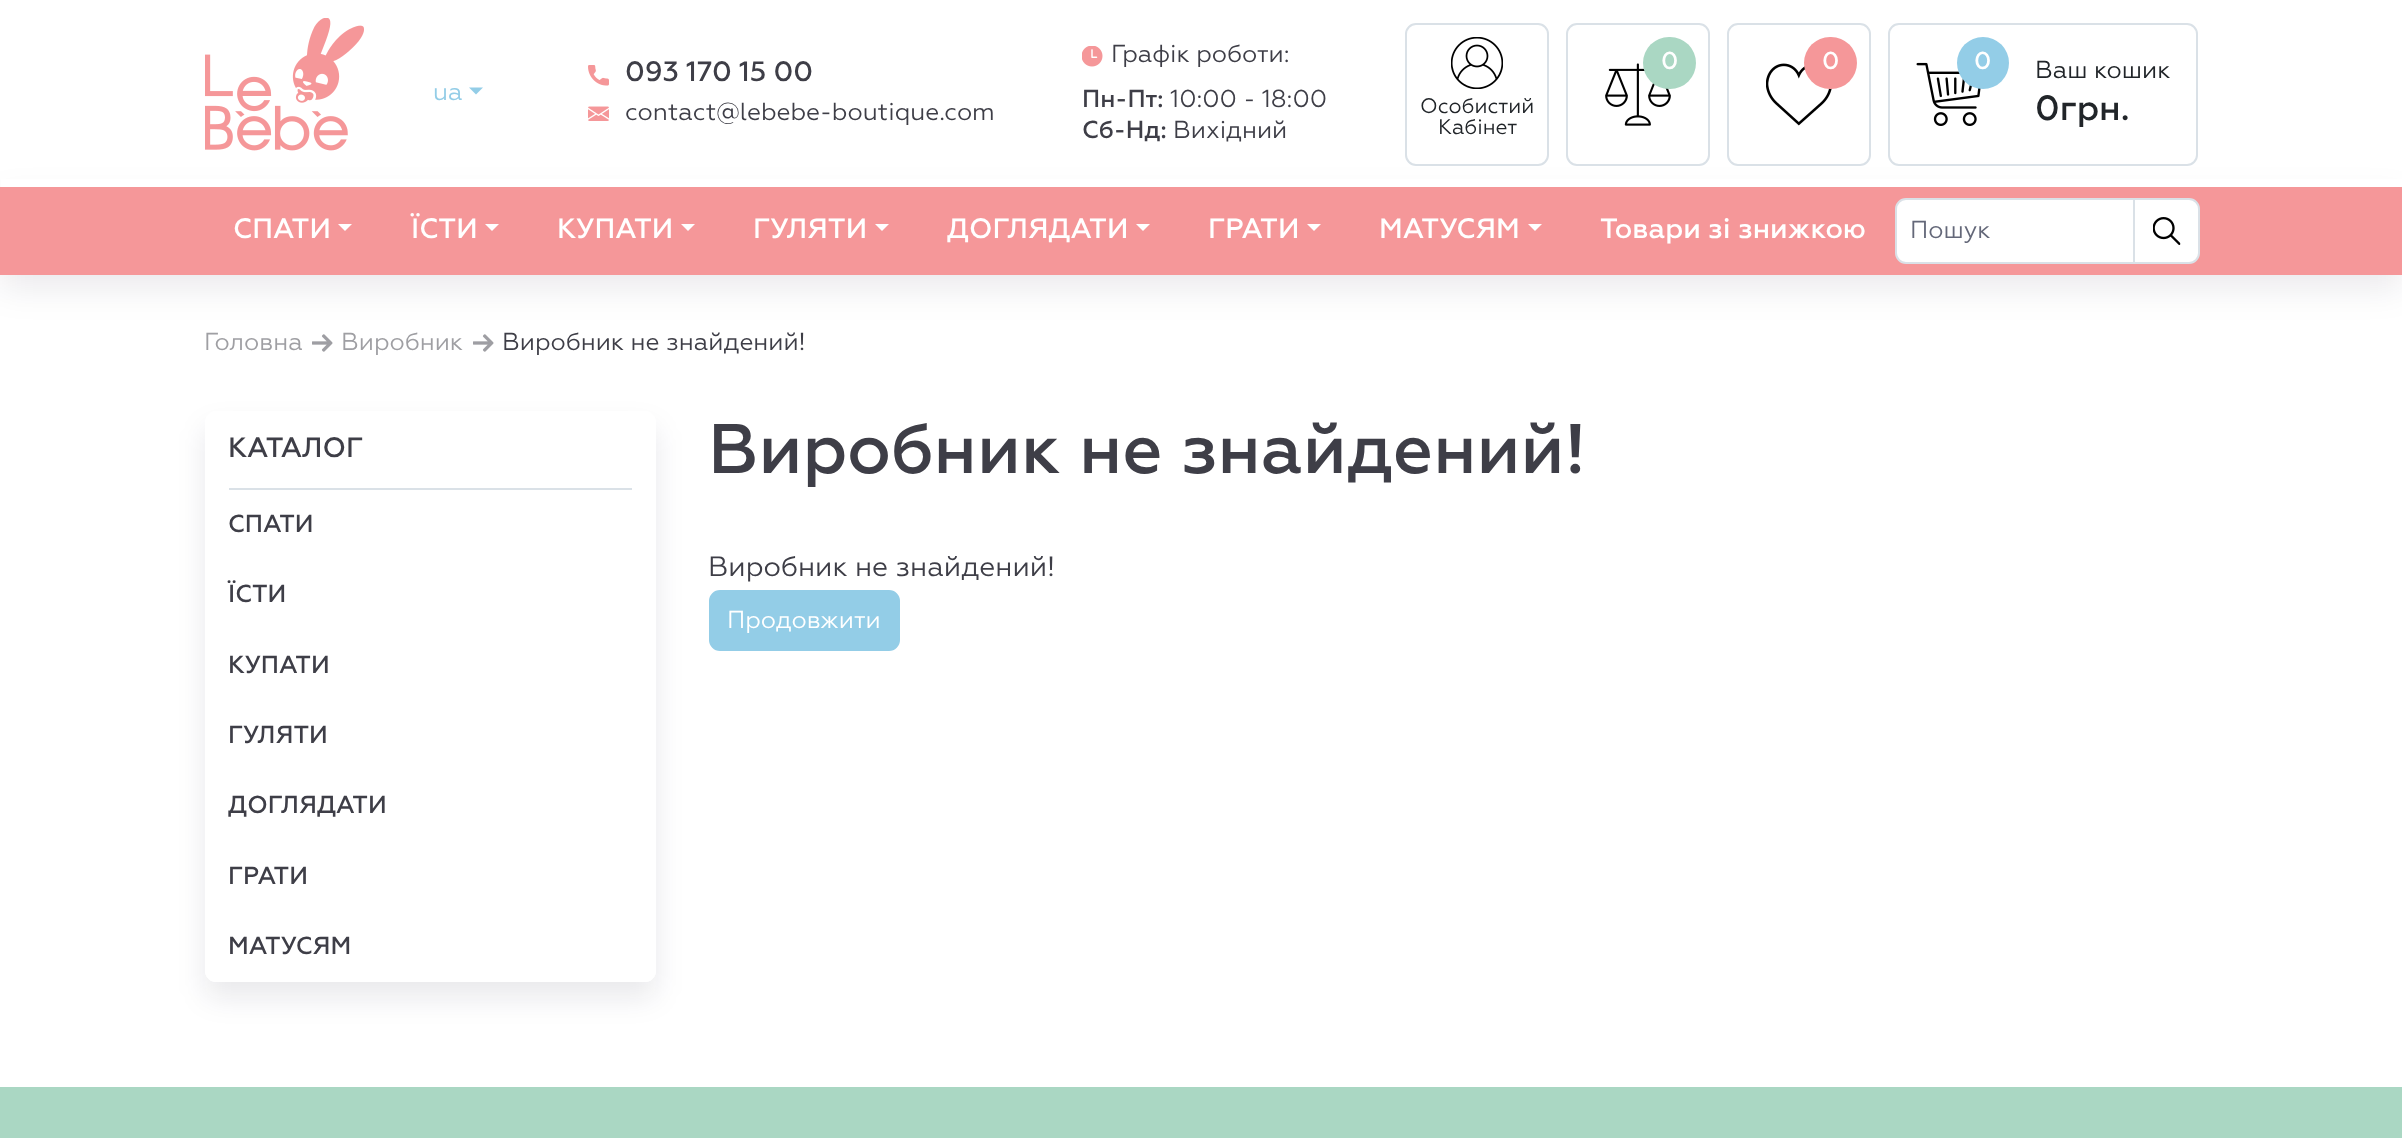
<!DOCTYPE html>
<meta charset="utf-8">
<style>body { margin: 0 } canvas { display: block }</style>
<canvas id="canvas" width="2402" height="1138"></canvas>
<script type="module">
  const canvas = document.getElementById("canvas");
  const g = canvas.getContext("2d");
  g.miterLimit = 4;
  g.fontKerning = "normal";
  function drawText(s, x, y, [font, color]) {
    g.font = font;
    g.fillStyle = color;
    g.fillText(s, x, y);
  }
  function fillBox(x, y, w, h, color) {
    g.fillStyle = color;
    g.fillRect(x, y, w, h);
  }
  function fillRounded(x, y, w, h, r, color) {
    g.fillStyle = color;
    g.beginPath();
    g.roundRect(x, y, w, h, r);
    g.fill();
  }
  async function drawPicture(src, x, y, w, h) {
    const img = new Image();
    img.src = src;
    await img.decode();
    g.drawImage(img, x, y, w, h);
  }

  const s1 = ["24.5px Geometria", "#93CDE7"];
  const s2 = ["500 28px Geometria", "#3E3E47"];
  const s3 = ["24.5px Geometria", "#3E3E47"];
  const s4 = ["500 24.5px Geometria", "#3E3E47"];
  const s5 = ["21px Geometria", "#212529"];
  const s6 = ["500 24.5px Geometria", "#FFFFFF"];
  const s7 = ["24.5px Geometria", "#212529"];
  const s8 = ["500 35px Geometria", "#212529"];
  const s9 = ["500 28px Geometria", "#FFFFFF"];
  const s10 = ["24.5px Geometria", "#646879"];
  const s11 = ["24.5px Geometria", "#9F9FA3"];
  const s12 = ["500 70px Geometria", "#3E3E47"];
  const s13 = ["28px Geometria", "#3E3E47"];
  const s14 = ["24.5px Geometria", "#FFFFFF"];

  fillBox(0, 0, 2402, 1138, "#FFFFFF");
  await drawPicture("pic10.png", 312, 334, 21, 18);
  await drawPicture("pic10.png", 473, 334, 21, 18);
  g.fillStyle = "rgba(10, 4, 35, 0.09)";
  g.filter = "blur(17.5px)";
  g.beginPath();
  g.rect(0, 200, 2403, 87);
  g.fill();
  g.filter = "none";
  fillBox(1, 179, 2401, 8, "#FFFFFF");
  await drawPicture("pic1.png", 205, 18, 159, 133);
  drawText("ua", 433, 100, s1);
  g.beginPath();
  g.moveTo(469, 87.5);
  g.lineTo(483, 87.5);
  g.lineTo(476, 94.5);
  g.closePath();
  g.fill();
  await drawPicture("pic2.png", 588, 65, 21, 21);
  drawText("093 170 15 00", 625, 81, s2);
  await drawPicture("pic3.png", 588, 106, 21, 15);
  drawText("contact@lebebe-boutique.com", 625, 120, s3);
  await drawPicture("pic4.png", 1082, 46, 21, 21);
  drawText("Графік роботи:", 1111, 62, s3);
  drawText("Пн-Пт:", 1082, 107, s4);
  drawText("10:00 - 18:00", 1170, 107, s3);
  drawText("Сб-Нд:", 1082, 138, s4);
  drawText("Вихідний", 1173, 138, s3);
  g.beginPath();
  g.roundRect(1406, 24, 142, 141, 10);
  g.strokeStyle = "#DAE1E7";
  g.lineWidth = 2;
  g.stroke();
  await drawPicture("pic5.png", 1451, 37, 52, 52);
  drawText("Особистий", 1420, 113, s5);
  drawText("Кабінет", 1438, 134, s5);
  g.beginPath();
  g.roundRect(1567, 24, 142, 141, 10);
  g.stroke();
  await drawPicture("pic6.png", 1605, 63, 66, 63);
  fillRounded(1643, 37, 53, 52, 26, "#AAD7C3");
  drawText("0", 1661, 69, s6);
  g.beginPath();
  g.roundRect(1728, 24, 142, 141, 10);
  g.stroke();
  await drawPicture("pic7.png", 1766, 63, 66, 63);
  fillRounded(1804, 37, 53, 52, 26, "#F59799");
  drawText("0", 1822, 69, s6);
  g.beginPath();
  g.roundRect(1889, 24, 308, 141, 10);
  g.stroke();
  await drawPicture("pic8.png", 1916, 62, 65, 64);
  g.fillStyle = "#93CDE7";
  g.beginPath();
  g.arc(1983, 63, 26, 0, Math.PI * 2);
  g.fill();
  drawText("0", 1974, 69, s6);
  drawText("Ваш кошик", 2035, 78, s7);
  drawText("0грн.", 2035, 120, s8);
  fillBox(0, 187, 2402, 88, "#F59799");
  drawText("СПАТИ", 233, 238, s9);
  g.beginPath();
  g.moveTo(338, 224);
  g.lineTo(352, 224);
  g.lineTo(345, 231);
  g.closePath();
  g.fill();
  drawText("ЇСТИ", 411, 238, s9);
  g.beginPath();
  g.moveTo(485, 224);
  g.lineTo(499, 224);
  g.lineTo(492, 231);
  g.closePath();
  g.fill();
  drawText("КУПАТИ", 557, 238, s9);
  g.beginPath();
  g.moveTo(681, 224);
  g.lineTo(695, 224);
  g.lineTo(688, 231);
  g.closePath();
  g.fill();
  drawText("ГУЛЯТИ", 753, 238, s9);
  g.beginPath();
  g.moveTo(875, 224);
  g.lineTo(889, 224);
  g.lineTo(882, 231);
  g.closePath();
  g.fill();
  drawText("ДОГЛЯДАТИ", 947, 238, s9);
  g.beginPath();
  g.moveTo(1136, 224);
  g.lineTo(1150, 224);
  g.lineTo(1143, 231);
  g.closePath();
  g.fill();
  drawText("ГРАТИ", 1208, 238, s9);
  g.beginPath();
  g.moveTo(1307, 224);
  g.lineTo(1321, 224);
  g.lineTo(1314, 231);
  g.closePath();
  g.fill();
  drawText("МАТУСЯМ", 1379, 238, s9);
  g.beginPath();
  g.moveTo(1528, 224);
  g.lineTo(1542, 224);
  g.lineTo(1535, 231);
  g.closePath();
  g.fill();
  drawText("Товари зі знижкою", 1600, 238, s9);
  g.beginPath();
  g.roundRect(1896, 199, 238, 64, [10, 0, 0, 10]);
  g.fill();
  g.stroke();
  drawText("Пошук", 1910, 238, s10);
  g.fillStyle = "#FFFFFF";
  g.beginPath();
  g.roundRect(2134, 199, 65, 64, [0, 10, 10, 0]);
  g.fill();
  g.stroke();
  await drawPicture("pic9.png", 2153, 217, 28, 28);
  drawText("Головна", 204, 350, s11);
  drawText("Виробник", 341, 350, s11);
  drawText("Виробник не знайдений!", 502, 350, s3);
  g.fillStyle = "rgba(6, 10, 44, 0.09)";
  g.filter = "blur(14px)";
  g.beginPath();
  g.roundRect(205, 427, 451, 571, 11);
  g.fill();
  g.filter = "none";
  fillRounded(205, 411, 451, 571, 11, "#FFFFFF");
  drawText("КАТАЛОГ", 228, 457, s2);
  fillBox(229, 488, 403, 2, "#DAE1E7");
  drawText("СПАТИ", 228, 532, s4);
  drawText("ЇСТИ", 228, 602, s4);
  drawText("КУПАТИ", 228, 673, s4);
  drawText("ГУЛЯТИ", 228, 743, s4);
  drawText("ДОГЛЯДАТИ", 228, 813, s4);
  drawText("ГРАТИ", 228, 884, s4);
  g.fillStyle = "#FFFFFF";
  g.beginPath();
  g.roundRect(205, 912, 451, 70, [0, 0, 11, 11]);
  g.fill();
  drawText("МАТУСЯМ", 228, 954, s4);
  drawText("Виробник не знайдений!", 708, 473, s12);
  drawText("Виробник не знайдений!", 708, 576, s13);
  g.fillStyle = "#93CDE7";
  g.beginPath();
  g.roundRect(710, 591, 189, 59, 10);
  g.fill();
  g.strokeStyle = "#93CDE7";
  g.stroke();
  drawText("Продовжити", 727, 628, s14);
  fillBox(0, 1087, 2402, 51, "#AAD7C3");
</script>
